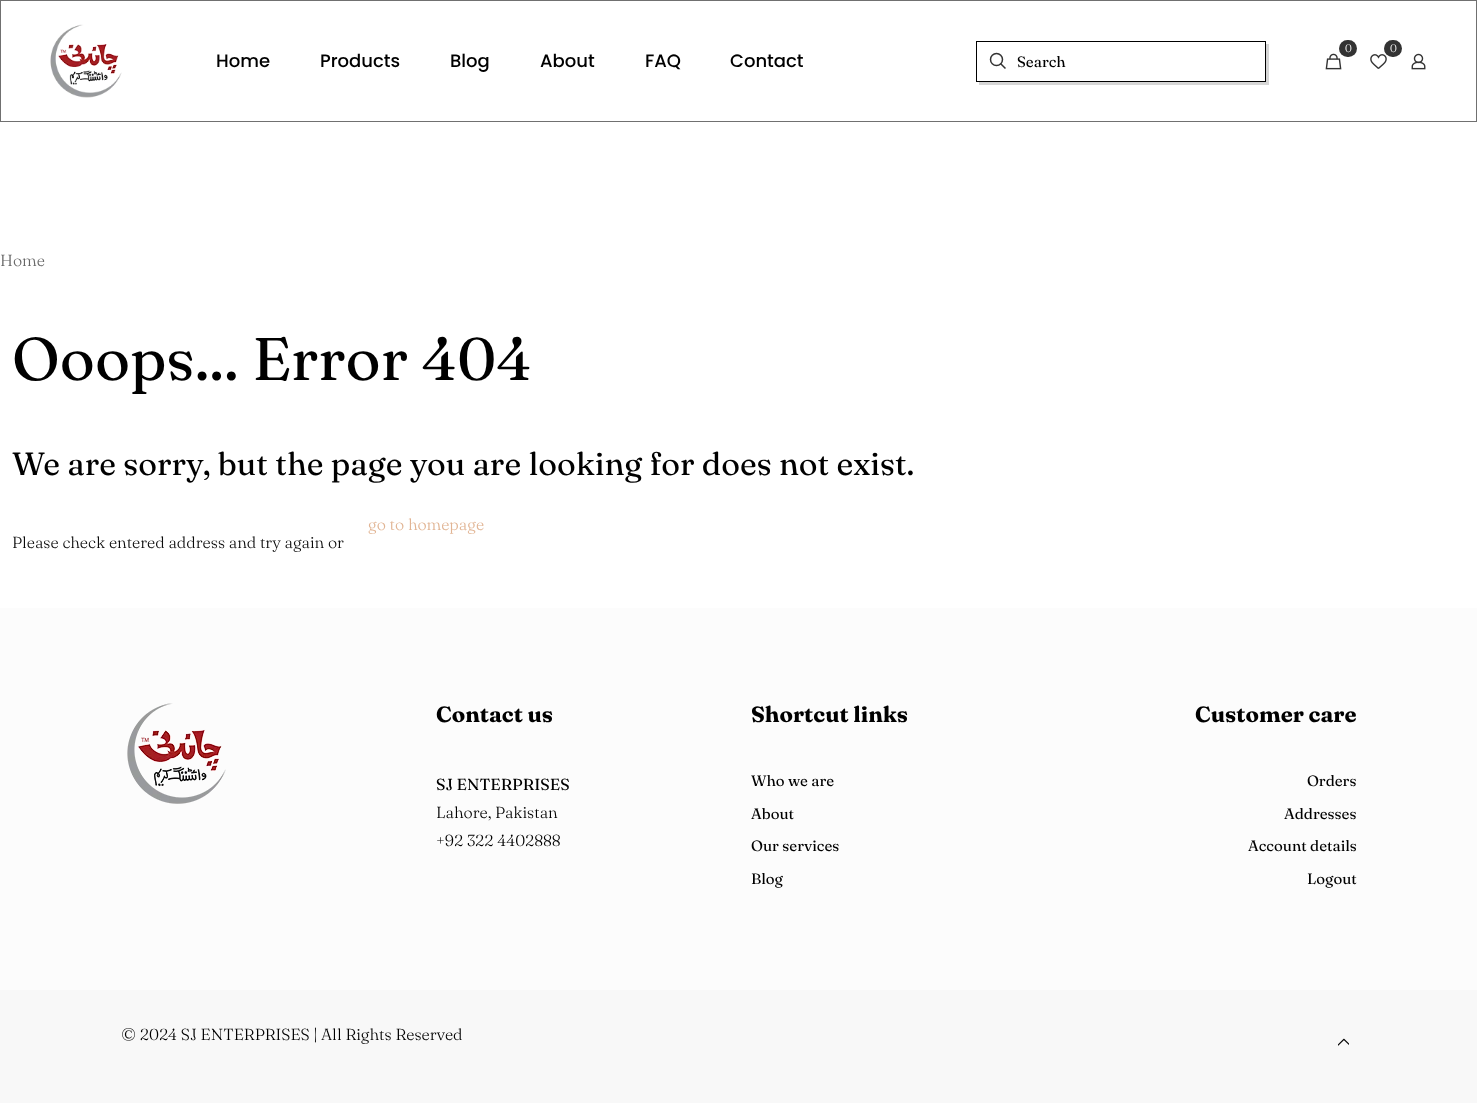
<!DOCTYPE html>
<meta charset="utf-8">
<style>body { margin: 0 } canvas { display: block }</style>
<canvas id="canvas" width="1477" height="1103"></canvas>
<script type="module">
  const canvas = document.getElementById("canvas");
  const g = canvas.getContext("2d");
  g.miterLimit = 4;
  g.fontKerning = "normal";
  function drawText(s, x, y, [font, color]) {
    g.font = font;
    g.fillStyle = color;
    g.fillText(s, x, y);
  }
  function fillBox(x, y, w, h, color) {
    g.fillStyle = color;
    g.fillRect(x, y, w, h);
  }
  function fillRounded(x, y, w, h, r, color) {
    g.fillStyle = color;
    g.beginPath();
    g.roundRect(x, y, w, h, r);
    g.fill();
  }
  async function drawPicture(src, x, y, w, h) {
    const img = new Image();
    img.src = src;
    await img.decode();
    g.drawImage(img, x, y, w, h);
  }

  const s1 = ["500 18px Poppins", "#000000"];
  const s2 = ["300 11px Fraunces", "#FFFFFF"];
  const s3 = ["15px Fraunces", "#000000"];
  const s4 = ["300 16px Fraunces", "#666666"];
  const s5 = ["60px Fraunces", "#000000"];
  const s6 = ["32px Fraunces", "#000000"];
  const s7 = ["300 16px Fraunces", "#E1B493"];
  const s8 = ["300 16px Fraunces", "#0A0A0A"];
  const s9 = ["bold 22px Fraunces", "#000000"];
  const s10 = ["16px Fraunces", "#000000"];
  const s11 = ["300 16px Fraunces", "#000000"];

  fillBox(0, 0, 1477, 1103, "#FFFFFF");
  g.strokeStyle = "#707070";
  g.strokeRect(0.5, 0.5, 1476, 121);
  await drawPicture("pic1.png", 50, 24, 72, 74);
  drawText("Home", 216, 67, s1);
  drawText("Products", 320, 67, s1);
  drawText("Blog", 450, 67, s1);
  drawText("About", 540, 67, s1);
  drawText("FAQ", 645, 67, s1);
  drawText("Contact", 730, 67, s1);
  await drawPicture("pic2.png", 1325, 53, 17, 17);
  fillRounded(1339, 40, 18, 17, 8.5, "#333333");
  drawText("0", 1345, 52, s2);
  await drawPicture("pic3.png", 1370, 54, 17, 15);
  fillRounded(1384, 40, 18, 17, 8.5, "#333333");
  drawText("0", 1390, 52, s2);
  g.fillStyle = "#D6D6D6";
  g.beginPath();
  g.moveTo(979, 82);
  g.lineTo(979, 85);
  g.lineTo(1269, 85);
  g.lineTo(1269, 44);
  g.lineTo(1266, 44);
  g.lineTo(1266, 82);
  g.closePath();
  g.fill();
  g.strokeStyle = "#000000";
  g.strokeRect(976.5, 41.5, 289, 40);
  g.beginPath();
  g.arc(996.5, 59.5, 6, 0, Math.PI * 2);
  g.strokeStyle = "#333333";
  g.lineWidth = 1.5;
  g.stroke();
  g.beginPath();
  g.moveTo(1000.5, 63.5);
  g.lineTo(1005.5, 68.5);
  g.stroke();
  drawText("Search", 1017, 67, s3);
  await drawPicture("pic4.png", 1411, 53, 15, 17);
  drawText("Home", 0, 266, s4);
  drawText("Ooops... Error 404", 12, 380, s5);
  drawText("We are sorry, but the page you are looking for does not exist.", 12, 475, s6);
  drawText("go to homepage", 368, 530, s7);
  drawText("Please check entered address and try again or", 12, 548, s8);
  fillBox(0, 608, 1477, 382, "#FCFCFC");
  await drawPicture("pic5.png", 127, 703, 99, 101);
  drawText("Contact us", 436, 722, s9);
  drawText("SJ ENTERPRISES", 436, 790, s10);
  drawText("Lahore, Pakistan", 436, 818, s11);
  drawText("+92 322 4402888", 436, 846, s11);
  drawText("Shortcut links", 751, 722, s9);
  drawText("Who we are", 751, 786, s3);
  drawText("About", 751, 819, s3);
  drawText("Our services", 751, 851, s3);
  drawText("Blog", 751, 884, s3);
  drawText("Customer care", 1195, 722, s9);
  drawText("Orders", 1307, 786, s3);
  drawText("Addresses", 1284, 819, s3);
  drawText("Account details", 1248, 851, s3);
  drawText("Logout", 1307, 884, s3);
  fillBox(0, 990, 1477, 113, "#F8F8F8");
  drawText("© 2024 SJ ENTERPRISES | All Rights Reserved", 121, 1040, s11);
  await drawPicture("pic6.png", 1338, 1038, 11, 8);
</script>
